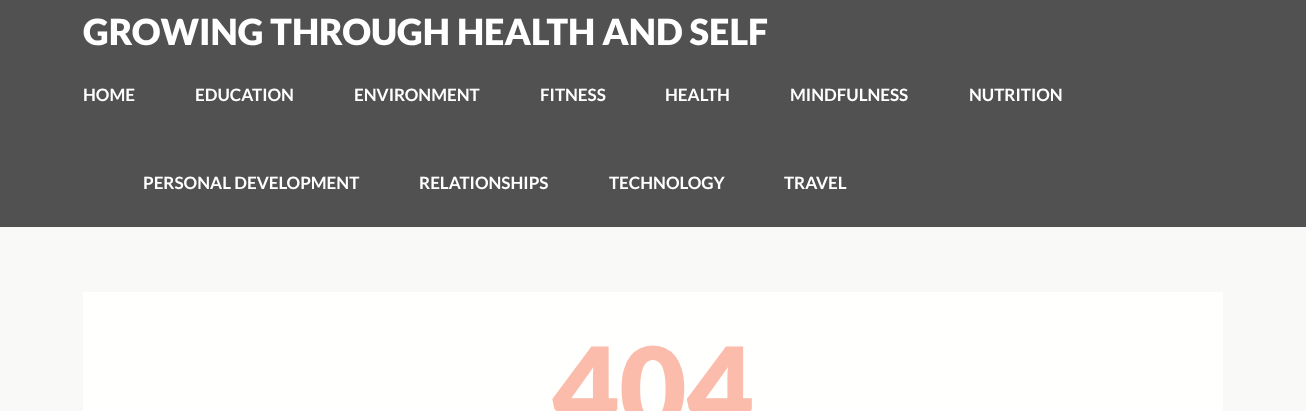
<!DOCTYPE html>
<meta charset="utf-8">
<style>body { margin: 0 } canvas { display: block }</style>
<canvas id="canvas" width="1306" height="411"></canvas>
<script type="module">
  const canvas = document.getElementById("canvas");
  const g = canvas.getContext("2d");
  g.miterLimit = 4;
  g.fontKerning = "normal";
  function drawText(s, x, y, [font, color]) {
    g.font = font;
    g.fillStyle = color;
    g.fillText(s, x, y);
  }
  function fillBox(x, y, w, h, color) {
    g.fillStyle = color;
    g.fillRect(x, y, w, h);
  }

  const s1 = ["900 36px Lato", "#FFFFFF"];
  const s2 = ["bold 17px Lato", "#FFFFFF"];
  const s3 = ["900 116px Lato", "#FBBCAB"];

  fillBox(0, 0, 1306, 411, "#F9F9F8");
  fillBox(0, 0, 1306, 227, "#515151");
  drawText("GROWING THROUGH HEALTH AND SELF", 83, 45, s1);
  drawText("HOME", 83, 101, s2);
  drawText("EDUCATION", 195, 101, s2);
  drawText("ENVIRONMENT", 354, 101, s2);
  drawText("FITNESS", 540, 101, s2);
  drawText("HEALTH", 665, 101, s2);
  drawText("MINDFULNESS", 790, 101, s2);
  drawText("NUTRITION", 969, 101, s2);
  drawText("PERSONAL DEVELOPMENT", 143, 189, s2);
  drawText("RELATIONSHIPS", 419, 189, s2);
  drawText("TECHNOLOGY", 609, 189, s2);
  drawText("TRAVEL", 784, 189, s2);
  fillBox(83, 292, 1140, 119, "#FFFFFE");
  drawText("404", 552, 431, s3);
</script>
